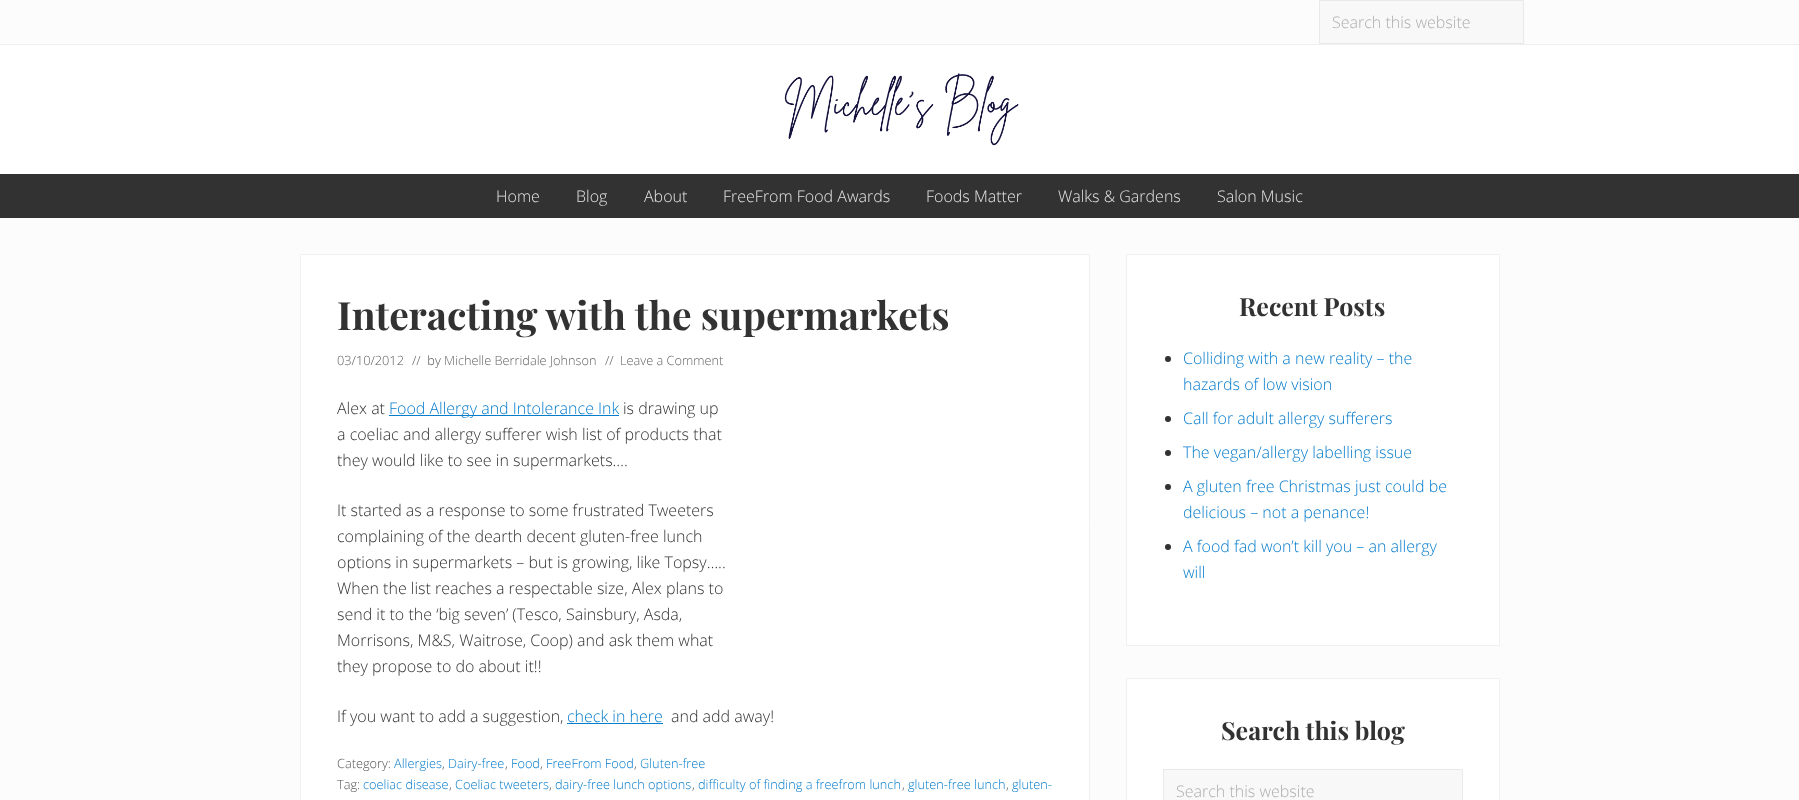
<!DOCTYPE html>
<meta charset="utf-8">
<style>body { margin: 0 } canvas { display: block }</style>
<canvas id="canvas" width="1799" height="800"></canvas>
<script type="module">
  const canvas = document.getElementById("canvas");
  const g = canvas.getContext("2d");
  g.miterLimit = 4;
  g.fontKerning = "normal";
  function drawText(s, x, y, [font, color]) {
    g.font = font;
    g.fillStyle = color;
    g.fillText(s, x, y);
  }
  function fillBox(x, y, w, h, color) {
    g.fillStyle = color;
    g.fillRect(x, y, w, h);
  }
  async function drawPicture(src, x, y, w, h) {
    const img = new Image();
    img.src = src;
    await img.decode();
    g.drawImage(img, x, y, w, h);
  }

  const s1 = ["300 16px Open Sans", "#AEAEAE"];
  const s2 = ["300 16px Open Sans", "#E4E4E4"];
  const s3 = ["bold 39px Playfair Display", "#323232"];
  const s4 = ["300 12.75px Open Sans", "#555555"];
  const s5 = ["300 12.75px Open Sans", "#666666"];
  const s6 = ["300 16px Open Sans", "#323232"];
  const s7 = ["300 16px Open Sans", "#067CCC"];
  const s8 = ["300 12.75px Open Sans", "#067CCC"];
  const s9 = ["bold 25px Playfair Display", "#323232"];

  fillBox(0, 0, 1799, 800, "#FCFCFC");
  fillBox(0, 44, 1799, 1, "#EFEFEF");
  g.fillStyle = "#F8F8F8";
  g.beginPath();
  g.rect(1319.5, 0.5, 204, 43);
  g.fill();
  g.strokeStyle = "#E9E9E9";
  g.stroke();
  drawText("Search this website", 1332, 28, s1);
  fillBox(0, 45, 1799, 129, "#FFFFFF");
  await drawPicture("pic1.png", 784, 73, 235, 73);
  fillBox(0, 174, 1799, 44, "#323232");
  drawText("Home", 496, 202, s2);
  drawText("Blog", 576, 202, s2);
  drawText("About", 644, 202, s2);
  drawText("FreeFrom Food Awards", 723, 202, s2);
  drawText("Foods Matter", 926, 202, s2);
  drawText("Walks & Gardens", 1058, 202, s2);
  drawText("Salon Music", 1217, 202, s2);
  g.fillStyle = "#FFFFFF";
  g.beginPath();
  g.rect(300.5, 254.5, 789, 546);
  g.fill();
  g.strokeStyle = "#F0F0F0";
  g.stroke();
  drawText("Interacting with the supermarkets", 337, 330, s3);
  drawText("03/10/2012", 337, 365, s4);
  drawText("//  by", 412, 365, s4);
  drawText("Michelle Berridale Johnson", 444, 365, s5);
  drawText("//", 605, 365, s4);
  drawText("Leave a Comment", 620, 365, s5);
  drawText("Alex at", 337, 414, s6);
  fillBox(389, 415, 230, 1, "#067CCC");
  drawText("Food Allergy and Intolerance Ink", 389, 414, s7);
  drawText("is drawing up", 623, 414, s6);
  drawText("a coeliac and allergy sufferer wish list of products that", 337, 440, s6);
  drawText("they would like to see in supermarkets….", 337, 466, s6);
  drawText("It started as a response to some frustrated Tweeters", 337, 516, s6);
  drawText("complaining of the dearth decent gluten-free lunch", 337, 542, s6);
  drawText("options in supermarkets – but is growing, like Topsy…..", 337, 568, s6);
  drawText("When the list reaches a respectable size, Alex plans to", 337, 594, s6);
  drawText("send it to the ‘big seven’ (Tesco, Sainsbury, Asda,", 337, 620, s6);
  drawText("Morrisons, M&S, Waitrose, Coop) and ask them what", 337, 646, s6);
  drawText("they propose to do about it!!", 337, 672, s6);
  drawText("If you want to add a suggestion,", 337, 722, s6);
  drawText("check in here", 567, 722, s7);
  fillBox(567, 723, 96, 1, "#067CCC");
  drawText("and add away!", 671, 722, s6);
  drawText("Category:", 337, 768, s4);
  drawText("Allergies", 394, 768, s8);
  drawText(",", 442, 768, s4);
  drawText("Dairy-free", 448, 768, s8);
  drawText(",", 505, 768, s4);
  drawText("Food", 511, 768, s8);
  drawText(",", 540, 768, s4);
  drawText("FreeFrom Food", 546, 768, s8);
  drawText(",", 634, 768, s4);
  drawText("Gluten-free", 640, 768, s8);
  drawText("Tag:", 337, 789, s4);
  drawText("coeliac disease", 363, 789, s8);
  drawText(",", 449, 789, s4);
  drawText("Coeliac tweeters", 455, 789, s8);
  drawText(",", 549, 789, s4);
  drawText("dairy-free lunch options", 555, 789, s8);
  drawText(",", 692, 789, s4);
  drawText("difficulty of finding a freefrom lunch", 698, 789, s8);
  drawText(",", 902, 789, s4);
  drawText("gluten-free lunch", 908, 789, s8);
  drawText(",", 1006, 789, s4);
  drawText("gluten-", 1012, 789, s8);
  g.fillStyle = "#FFFFFF";
  g.beginPath();
  g.rect(1126.5, 254.5, 373, 391);
  g.fill();
  g.stroke();
  drawText("Recent Posts", 1239, 316, s9);
  g.beginPath();
  g.arc(1168, 359, 3, 0, Math.PI * 2);
  g.fill();
  drawText("Colliding with a new reality – the", 1183, 364, s7);
  drawText("hazards of low vision", 1183, 390, s7);
  g.fillStyle = "#323232";
  g.beginPath();
  g.arc(1168, 419, 3, 0, Math.PI * 2);
  g.fill();
  drawText("Call for adult allergy sufferers", 1183, 424, s7);
  g.fillStyle = "#323232";
  g.beginPath();
  g.arc(1168, 453, 3, 0, Math.PI * 2);
  g.fill();
  drawText("The vegan/allergy labelling issue", 1183, 458, s7);
  g.fillStyle = "#323232";
  g.beginPath();
  g.arc(1168, 487, 3, 0, Math.PI * 2);
  g.fill();
  drawText("A gluten free Christmas just could be", 1183, 492, s7);
  drawText("delicious – not a penance!", 1183, 518, s7);
  g.fillStyle = "#323232";
  g.beginPath();
  g.arc(1168, 547, 3, 0, Math.PI * 2);
  g.fill();
  drawText("A food fad won’t kill you – an allergy", 1183, 552, s7);
  drawText("will", 1183, 578, s7);
  g.fillStyle = "#FFFFFF";
  g.beginPath();
  g.rect(1126.5, 678.5, 373, 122);
  g.fill();
  g.stroke();
  drawText("Search this blog", 1221, 740, s9);
  g.fillStyle = "#F8F8F8";
  g.beginPath();
  g.rect(1163.5, 769.5, 299, 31);
  g.fill();
  g.strokeStyle = "#E9E9E9";
  g.stroke();
  drawText("Search this website", 1176, 797, s1);
</script>
